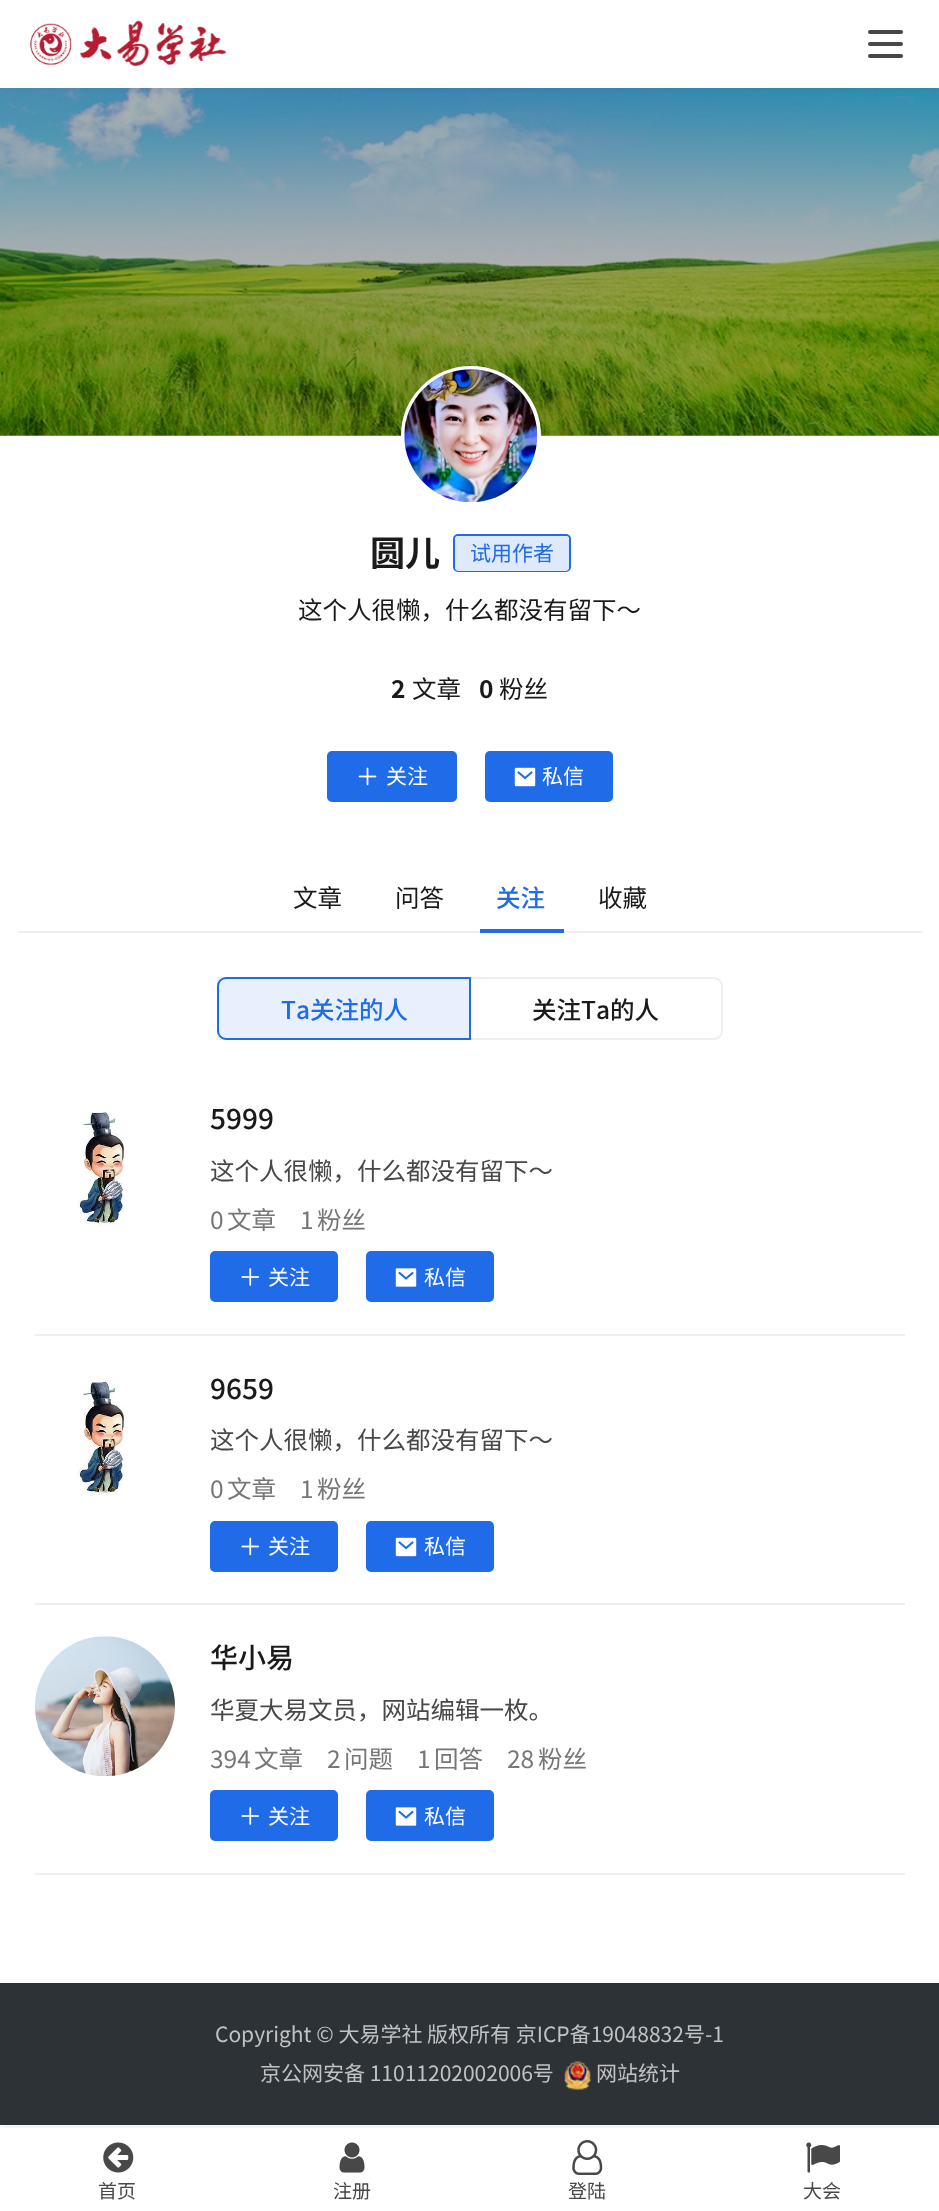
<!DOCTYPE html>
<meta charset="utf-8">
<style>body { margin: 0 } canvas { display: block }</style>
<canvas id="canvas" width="939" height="2211"></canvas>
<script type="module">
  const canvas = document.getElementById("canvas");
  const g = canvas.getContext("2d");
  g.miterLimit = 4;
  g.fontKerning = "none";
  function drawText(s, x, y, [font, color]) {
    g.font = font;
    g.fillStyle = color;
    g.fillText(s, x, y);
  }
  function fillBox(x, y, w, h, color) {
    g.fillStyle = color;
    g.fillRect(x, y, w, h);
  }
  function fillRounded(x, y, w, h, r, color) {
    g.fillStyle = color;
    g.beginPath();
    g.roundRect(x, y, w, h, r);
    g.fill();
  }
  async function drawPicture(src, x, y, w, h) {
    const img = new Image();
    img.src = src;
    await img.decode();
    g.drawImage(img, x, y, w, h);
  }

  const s1 = ["bold 35px Noto Sans CJK SC", "#1A1A1A"];
  const s2 = ["21px Noto Sans CJK SC", "#206BE7"];
  const s3 = ["24.5px Noto Sans CJK SC", "#1A1A1A"];
  const s4 = ["bold 24.5px Noto Sans CJK SC", "#1A1A1A"];
  const s5 = ["21px Noto Sans CJK SC", "#FFFFFF"];
  const s6 = ["500 24.5px Noto Sans CJK SC", "#206BE7"];
  const s7 = ["500 24.5px Noto Sans CJK SC", "#1A1A1A"];
  const s8 = ["500 28px Noto Sans CJK SC", "#1A1A1A"];
  const s9 = ["24.5px Noto Sans CJK SC", "#484848"];
  const s10 = ["24.5px Noto Sans CJK SC", "#767676"];
  const s11 = ["21px Noto Sans CJK SC", "#C0C2C3"];
  const s12 = ["19px Noto Sans CJK SC", "#484848"];

  fillBox(0, 0, 939, 2211, "#FFFFFF");
  fillBox(0, 435, 939, 1, "#B3B3B3");
  await drawPicture("pic2.png", 0, 88, 939, 348);
  g.fillStyle = "rgba(26, 26, 26, 0.06)";
  g.filter = "blur(2.5px)";
  g.beginPath();
  g.rect(-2, -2, 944, 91);
  g.fill();
  g.filter = "none";
  fillBox(0, 0, 939, 88, "#FFFFFF");
  await drawPicture("pic1.png", 30, 20, 197, 47);
  fillRounded(868, 30, 35, 4, 2, "#484848");
  fillRounded(868, 42, 35, 4, 2, "#484848");
  fillRounded(868, 54, 35, 4, 2, "#484848");
  g.beginPath();
  g.arc(471, 436, 68, 0, Math.PI * 2);
  g.strokeStyle = "#FFFFFF";
  g.lineWidth = 4;
  g.stroke();
  g.fillStyle = "#FFFFFF";
  g.beginPath();
  g.arc(470.5, 435.5, 66.5, 0, Math.PI * 2);
  g.fill();
  await drawPicture("pic3.png", 404, 369, 134, 134);
  drawText("圆儿", 370, 566, s1);
  g.beginPath();
  g.roundRect(454, 535, 116, 36, 4);
  g.strokeStyle = "#206BE7";
  g.lineWidth = 2;
  g.stroke();
  fillRounded(455, 536, 114, 35, 4, "#FFFFFF");
  drawText("试用作者", 470, 561, s2);
  fillRounded(455, 536, 114, 35, 4, "rgba(32, 107, 231, 0.15)");
  drawText("这个人很懒，什么都没有留下～", 298, 619, s3);
  drawText("2", 391, 698, s4);
  drawText("文章", 412, 698, s3);
  drawText("0", 479, 698, s4);
  drawText("粉丝", 499, 698, s3);
  g.fillStyle = "#206BE7";
  g.beginPath();
  g.roundRect(328, 752, 128, 49, 4);
  g.fill();
  g.stroke();
  await drawPicture("pic4.png", 358, 767, 19, 19);
  drawText("关注", 386, 784, s5);
  g.fillStyle = "#206BE7";
  g.beginPath();
  g.roundRect(486, 752, 126, 49, 4);
  g.fill();
  g.stroke();
  await drawPicture("pic5.png", 514, 767, 22, 20);
  drawText("私信", 542, 784, s5);
  fillBox(18, 931, 904, 2, "#EFEFEF");
  drawText("文章", 293, 907, s3);
  drawText("问答", 395, 907, s3);
  fillBox(480, 929, 84, 4, "#206BE7");
  drawText("关注", 496, 907, s6);
  drawText("收藏", 598, 907, s3);
  g.beginPath();
  g.roundRect(470, 978, 252, 61, [0, 8, 8, 0]);
  g.strokeStyle = "#EFEFEF";
  g.stroke();
  g.beginPath();
  g.roundRect(218, 978, 252, 61, [8, 0, 0, 8]);
  g.strokeStyle = "#206BE7";
  g.stroke();
  fillBox(217, 977, 252, 63, "rgba(32, 107, 231, 0.1)");
  drawText("Ta关注的人", 281, 1019, s6);
  drawText("关注Ta的人", 532, 1019, s7);
  fillBox(35, 1334, 870, 2, "#EFEFEF");
  await drawPicture("pic6.png", 76, 1110, 50, 117);
  drawText("5999", 210, 1129, s8);
  drawText("这个人很懒，什么都没有留下～", 210, 1180, s9);
  drawText("0", 210, 1229, s10);
  drawText("文章", 227, 1229, s10);
  drawText("1", 300, 1229, s10);
  drawText("粉丝", 317, 1229, s10);
  g.fillStyle = "#206BE7";
  g.beginPath();
  g.roundRect(211, 1252, 126, 49, 4);
  g.fill();
  g.stroke();
  await drawPicture("pic7.png", 241, 1268, 18, 18);
  drawText("关注", 268, 1285, s5);
  g.fillStyle = "#206BE7";
  g.beginPath();
  g.roundRect(367, 1252, 126, 49, 4);
  g.fill();
  g.stroke();
  await drawPicture("pic8.png", 395, 1268, 22, 19);
  drawText("私信", 424, 1285, s5);
  fillBox(35, 1603, 870, 2, "#EFEFEF");
  await drawPicture("pic9.png", 76, 1380, 50, 116);
  drawText("9659", 210, 1399, s8);
  drawText("这个人很懒，什么都没有留下～", 210, 1449, s9);
  drawText("0", 210, 1498, s10);
  drawText("文章", 227, 1498, s10);
  drawText("1", 300, 1498, s10);
  drawText("粉丝", 317, 1498, s10);
  g.fillStyle = "#206BE7";
  g.beginPath();
  g.roundRect(211, 1522, 126, 49, 4);
  g.fill();
  g.stroke();
  await drawPicture("pic10.png", 241, 1537, 19, 19);
  drawText("关注", 268, 1554, s5);
  g.fillStyle = "#206BE7";
  g.beginPath();
  g.roundRect(367, 1522, 126, 49, 4);
  g.fill();
  g.stroke();
  await drawPicture("pic5.png", 395, 1537, 22, 20);
  drawText("私信", 424, 1554, s5);
  fillBox(35, 1873, 870, 2, "#EFEFEF");
  await drawPicture("pic11.png", 35, 1636, 140, 140);
  drawText("华小易", 210, 1668, s8);
  drawText("华夏大易文员，网站编辑一枚。", 210, 1719, s9);
  drawText("394", 210, 1768, s10);
  drawText("文章", 254, 1768, s10);
  drawText("2", 327, 1768, s10);
  drawText("问题", 344, 1768, s10);
  drawText("1", 417, 1768, s10);
  drawText("回答", 434, 1768, s10);
  drawText("28", 507, 1768, s10);
  drawText("粉丝", 538, 1768, s10);
  g.fillStyle = "#206BE7";
  g.beginPath();
  g.roundRect(211, 1791, 126, 49, 4);
  g.fill();
  g.stroke();
  await drawPicture("pic7.png", 241, 1807, 18, 18);
  drawText("关注", 268, 1824, s5);
  g.fillStyle = "#206BE7";
  g.beginPath();
  g.roundRect(367, 1791, 126, 49, 4);
  g.fill();
  g.stroke();
  await drawPicture("pic8.png", 395, 1807, 22, 19);
  drawText("私信", 424, 1824, s5);
  fillBox(0, 1983, 939, 142, "#2D3236");
  drawText("Copyright © 大易学社 版权所有 京ICP备19048832号-1", 215, 2042, s11);
  drawText("京公网安备 11011202002006号", 260, 2081, s11);
  await drawPicture("pic12.png", 564, 2061, 27, 29);
  drawText("网站统计", 596, 2081, s11);
  g.save();
  g.beginPath();
  g.rect(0, 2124, 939, 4);
  g.clip();
  g.fillStyle = "rgba(26, 26, 26, 0.06)";
  g.filter = "blur(2.5px)";
  g.beginPath();
  g.rect(0, 2125, 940, 84);
  g.fill();
  g.filter = "none";
  g.restore();
  await drawPicture("pic13.png", 103, 2142, 31, 31);
  drawText("首页", 98, 2198, s12);
  await drawPicture("pic14.png", 339, 2142, 26, 31);
  drawText("注册", 333, 2198, s12);
  await drawPicture("pic15.png", 572, 2140, 31, 35);
  drawText("登陆", 568, 2198, s12);
  await drawPicture("pic16.png", 806, 2142, 34, 31);
  drawText("大会", 803, 2198, s12);
</script>
